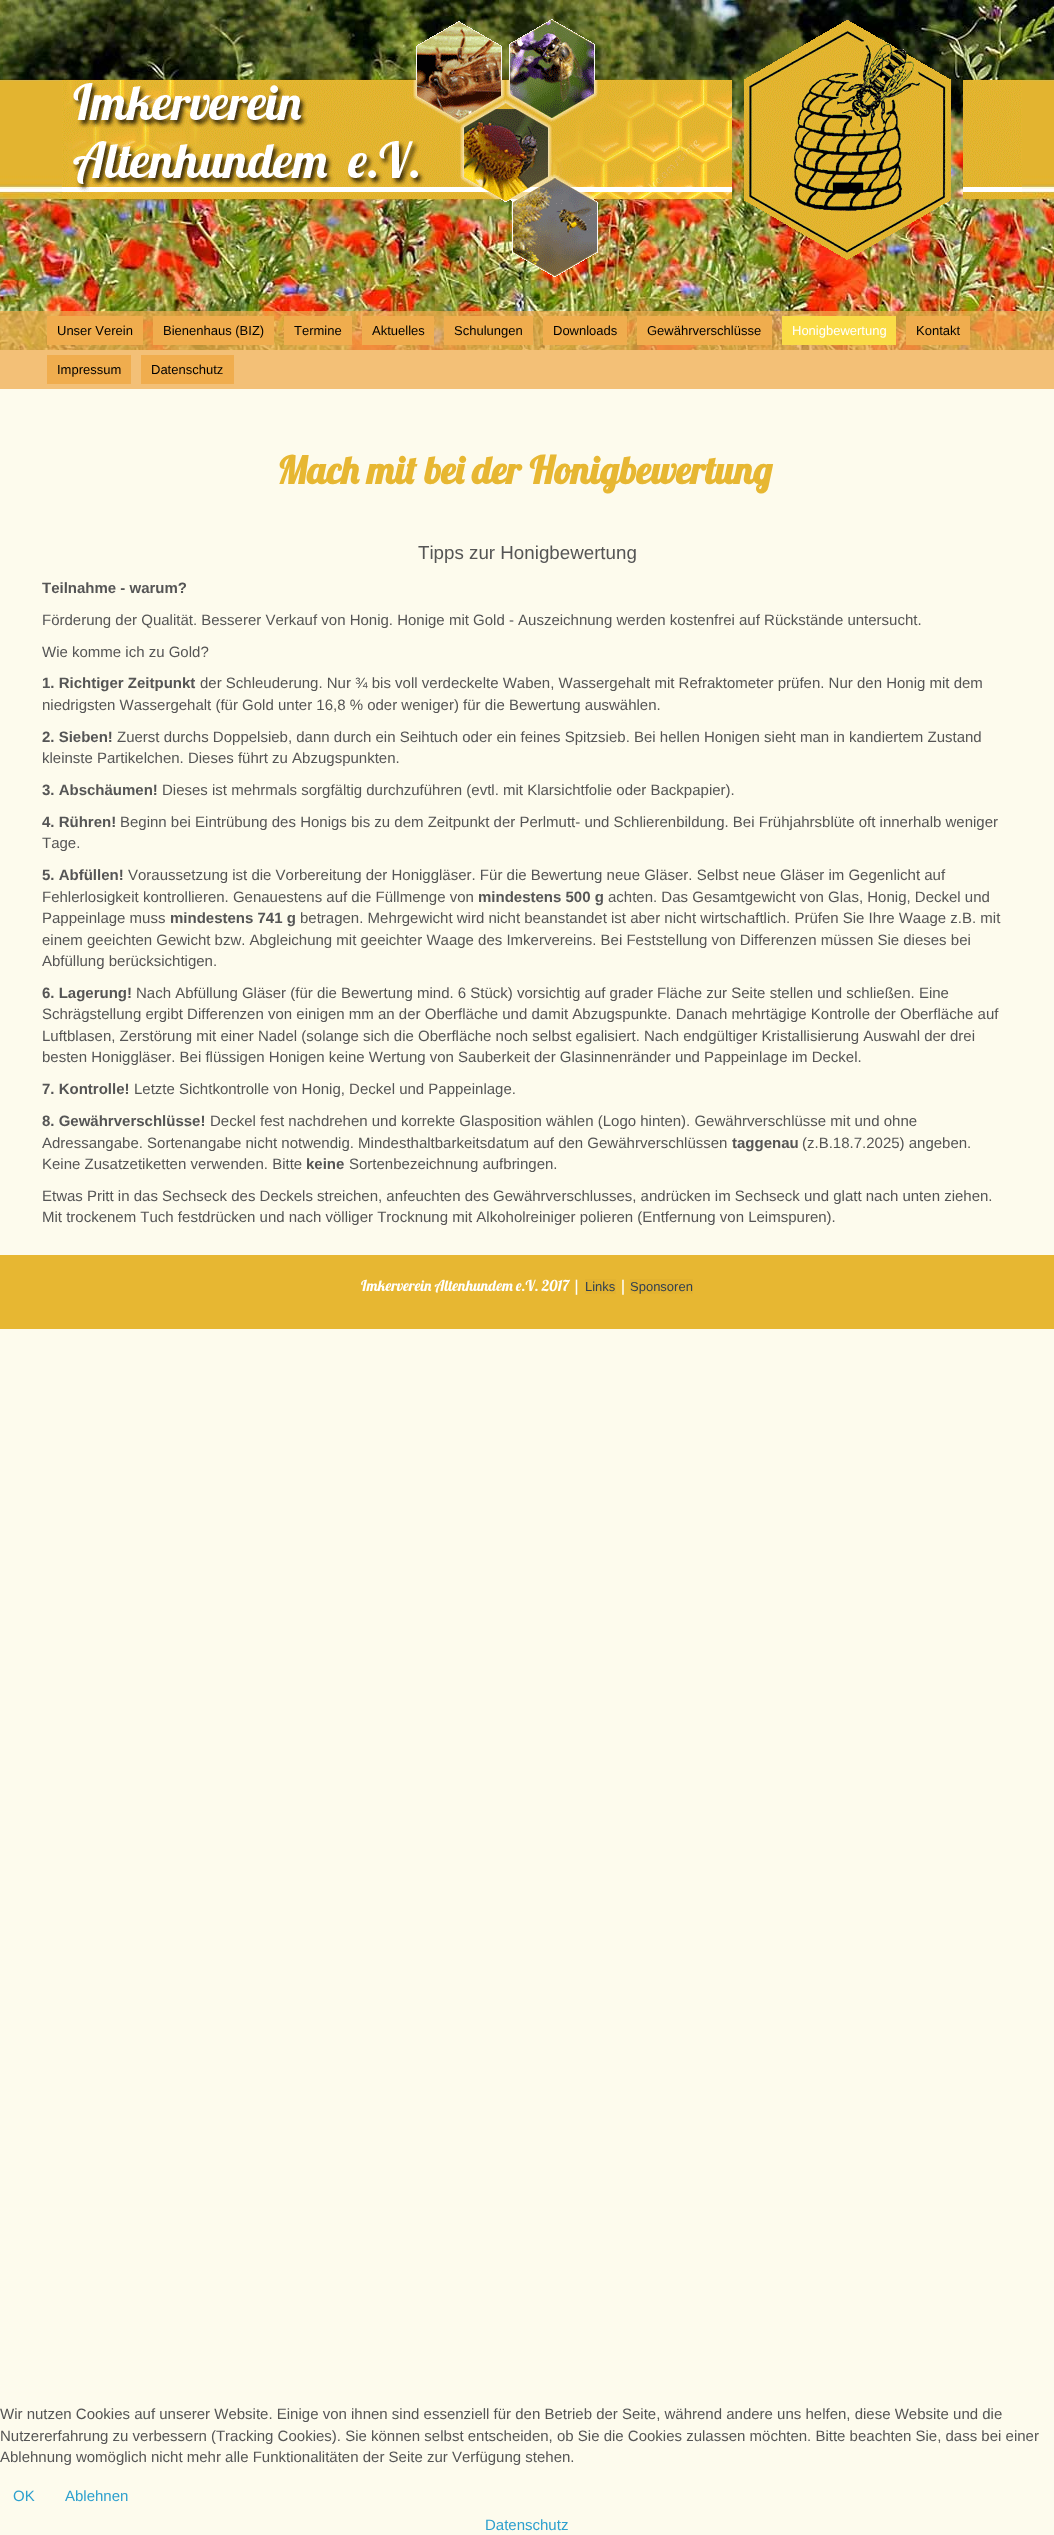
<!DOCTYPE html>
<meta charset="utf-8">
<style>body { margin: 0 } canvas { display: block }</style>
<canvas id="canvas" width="1054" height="2535"></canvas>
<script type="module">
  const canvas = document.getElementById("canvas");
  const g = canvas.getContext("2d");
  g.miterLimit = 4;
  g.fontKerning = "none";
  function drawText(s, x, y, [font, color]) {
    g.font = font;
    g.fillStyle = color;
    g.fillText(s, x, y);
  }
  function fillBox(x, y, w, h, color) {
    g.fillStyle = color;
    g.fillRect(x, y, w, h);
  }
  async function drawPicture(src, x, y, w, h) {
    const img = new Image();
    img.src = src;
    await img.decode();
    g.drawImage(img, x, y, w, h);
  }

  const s1 = ["13px Liberation Sans", "#000000"];
  const s2 = ["13px Liberation Sans", "#FFFFFF"];
  const s3 = ["bold 38px Lobster", "#E7B732"];
  const s4 = ["18.75px Liberation Sans", "#555555"];
  const s5 = ["bold 15px Liberation Sans", "#555555"];
  const s6 = ["15px Liberation Sans", "#555555"];
  const s7 = ["15px Lobster", "#FFFFFF"];
  const s8 = ["13px Liberation Sans", "#303F50"];
  const s9 = ["15px Liberation Sans", "#2DA0CE"];

  fillBox(0, 0, 1054, 2535, "#FDFBED");
  await drawPicture("pic1.png", 0, 0, 1054, 350);
  await drawPicture("pic2.png", 62, 19, 960, 258);
  fillBox(0, 311, 1054, 78, "rgba(239, 172, 77, 0.74)");
  fillBox(47, 316, 96, 29, "#F0AD4E");
  drawText("Unser Verein", 57, 335, s1);
  fillBox(153, 316, 121, 29, "#F0AD4E");
  drawText("Bienenhaus (BIZ)", 163, 335, s1);
  fillBox(284, 316, 68, 29, "#F0AD4E");
  drawText("Termine", 294, 335, s1);
  fillBox(362, 316, 72, 29, "#F0AD4E");
  drawText("Aktuelles", 372, 335, s1);
  fillBox(444, 316, 89, 29, "#F0AD4E");
  drawText("Schulungen", 454, 335, s1);
  fillBox(543, 316, 84, 29, "#F0AD4E");
  drawText("Downloads", 553, 335, s1);
  fillBox(637, 316, 135, 29, "#F0AD4E");
  drawText("Gewährverschlüsse", 647, 335, s1);
  fillBox(782, 316, 114, 29, "#FADC47");
  drawText("Honigbewertung", 792, 335, s2);
  fillBox(906, 316, 64, 29, "#F0AD4E");
  drawText("Kontakt", 916, 335, s1);
  fillBox(47, 355, 84, 29, "#F0AD4E");
  drawText("Impressum", 57, 374, s1);
  fillBox(141, 355, 93, 29, "#F0AD4E");
  drawText("Datenschutz", 151, 374, s1);
  drawText("Mach mit bei der Honigbewertung", 277, 484, s3);
  drawText("Tipps zur Honigbewertung", 418, 559, s4);
  drawText("Teilnahme - warum?", 42, 593, s5);
  drawText("Förderung der Qualität. Besserer Verkauf von Honig. Honige mit Gold - Auszeichnung werden kostenfrei auf Rückstände untersucht.", 42, 625, s6);
  drawText("Wie komme ich zu Gold?", 42, 657, s6);
  drawText("1. Richtiger Zeitpunkt", 42, 688, s5);
  drawText("der Schleuderung. Nur ¾ bis voll verdeckelte Waben, Wassergehalt mit Refraktometer prüfen. Nur den Honig mit dem", 200, 688, s6);
  drawText("niedrigsten Wassergehalt (für Gold unter 16,8 % oder weniger) für die Bewertung auswählen.", 42, 710, s6);
  drawText("2. Sieben!", 42, 742, s5);
  drawText("Zuerst durchs Doppelsieb, dann durch ein Seihtuch oder ein feines Spitzsieb. Bei hellen Honigen sieht man in kandiertem Zustand", 117, 742, s6);
  drawText("kleinste Partikelchen. Dieses führt zu Abzugspunkten.", 42, 763, s6);
  drawText("3. Abschäumen!", 42, 795, s5);
  drawText("Dieses ist mehrmals sorgfältig durchzuführen (evtl. mit Klarsichtfolie oder Backpapier).", 162, 795, s6);
  drawText("4. Rühren!", 42, 827, s5);
  drawText("Beginn bei Eintrübung des Honigs bis zu dem Zeitpunkt der Perlmutt- und Schlierenbildung. Bei Frühjahrsblüte oft innerhalb weniger", 120, 827, s6);
  drawText("Tage.", 42, 848, s6);
  drawText("5. Abfüllen!", 42, 880, s5);
  drawText("Voraussetzung ist die Vorbereitung der Honiggläser. Für die Bewertung neue Gläser. Selbst neue Gläser im Gegenlicht auf", 128, 880, s6);
  drawText("Fehlerlosigkeit kontrollieren. Genauestens auf die Füllmenge von", 42, 902, s6);
  drawText("mindestens 500 g", 478, 902, s5);
  drawText("achten. Das Gesamtgewicht von Glas, Honig, Deckel und", 608, 902, s6);
  drawText("Pappeinlage muss", 42, 923, s6);
  drawText("mindestens 741 g", 170, 923, s5);
  drawText("betragen. Mehrgewicht wird nicht beanstandet ist aber nicht wirtschaftlich. Prüfen Sie Ihre Waage z.B. mit", 300, 923, s6);
  drawText("einem geeichten Gewicht bzw. Abgleichung mit geeichter Waage des Imkervereins. Bei Feststellung von Differenzen müssen Sie dieses bei", 42, 945, s6);
  drawText("Abfüllung berücksichtigen.", 42, 966, s6);
  drawText("6. Lagerung!", 42, 998, s5);
  drawText("Nach Abfüllung Gläser (für die Bewertung mind. 6 Stück) vorsichtig auf grader Fläche zur Seite stellen und schließen. Eine", 136, 998, s6);
  drawText("Schrägstellung ergibt Differenzen von einigen mm an der Oberfläche und damit Abzugspunkte. Danach mehrtägige Kontrolle der Oberfläche auf", 42, 1019, s6);
  drawText("Luftblasen, Zerstörung mit einer Nadel (solange sich die Oberfläche noch selbst egalisiert. Nach endgültiger Kristallisierung Auswahl der drei", 42, 1041, s6);
  drawText("besten Honiggläser. Bei flüssigen Honigen keine Wertung von Sauberkeit der Glasinnenränder und Pappeinlage im Deckel.", 42, 1062, s6);
  drawText("7. Kontrolle!", 42, 1094, s5);
  drawText("Letzte Sichtkontrolle von Honig, Deckel und Pappeinlage.", 134, 1094, s6);
  drawText("8. Gewährverschlüsse!", 42, 1126, s5);
  drawText("Deckel fest nachdrehen und korrekte Glasposition wählen (Logo hinten). Gewährverschlüsse mit und ohne", 210, 1126, s6);
  drawText("Adressangabe. Sortenangabe nicht notwendig. Mindesthaltbarkeitsdatum auf den Gewährverschlüssen", 42, 1148, s6);
  drawText("taggenau", 732, 1148, s5);
  drawText("(z.B.18.7.2025) angeben.", 802, 1148, s6);
  drawText("Keine Zusatzetiketten verwenden. Bitte", 42, 1169, s6);
  drawText("keine", 306, 1169, s5);
  drawText("Sortenbezeichnung aufbringen.", 349, 1169, s6);
  drawText("Etwas Pritt in das Sechseck des Deckels streichen, anfeuchten des Gewährverschlusses, andrücken im Sechseck und glatt nach unten ziehen.", 42, 1201, s6);
  drawText("Mit trockenem Tuch festdrücken und nach völliger Trocknung mit Alkoholreiniger polieren (Entfernung von Leimspuren).", 42, 1222, s6);
  fillBox(0, 1255, 1054, 74, "#E7B732");
  drawText("Imkerverein Altenhundem e.V. 2017 |", 361, 1291, s7);
  fillBox(585, 1279, 31, 15, "#E3B331");
  drawText("Links", 585, 1291, s8);
  drawText("|", 619, 1291, s7);
  fillBox(630, 1279, 63, 15, "#E3B331");
  drawText("Sponsoren", 630, 1291, s8);
  drawText("Wir nutzen Cookies auf unserer Website. Einige von ihnen sind essenziell für den Betrieb der Seite, während andere uns helfen, diese Website und die", 0, 2419, s6);
  drawText("Nutzererfahrung zu verbessern (Tracking Cookies). Sie können selbst entscheiden, ob Sie die Cookies zulassen möchten. Bitte beachten Sie, dass bei einer", 0, 2441, s6);
  drawText("Ablehnung womöglich nicht mehr alle Funktionalitäten der Seite zur Verfügung stehen.", 0, 2462, s6);
  drawText("OK", 13, 2501, s9);
  drawText("Ablehnen", 65, 2501, s9);
  drawText("Datenschutz", 485, 2530, s9);
</script>
